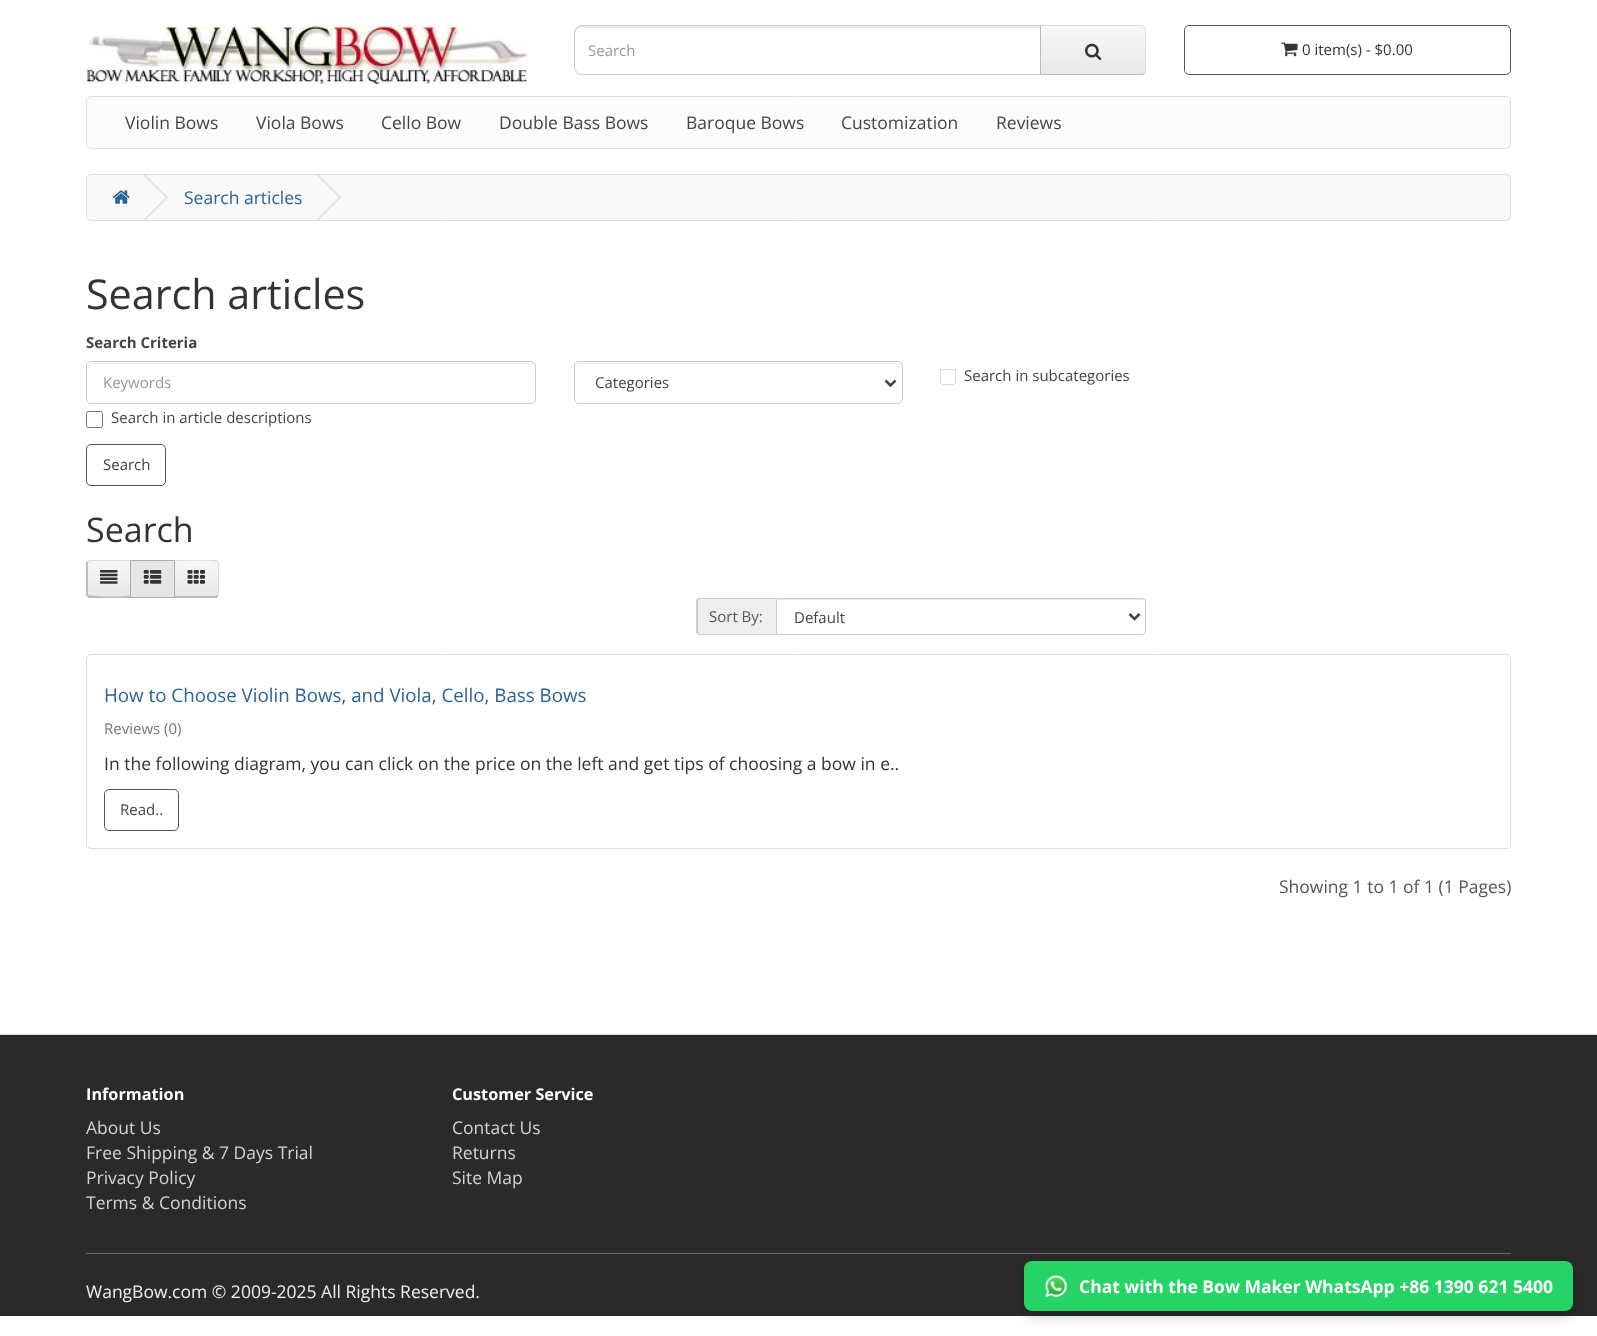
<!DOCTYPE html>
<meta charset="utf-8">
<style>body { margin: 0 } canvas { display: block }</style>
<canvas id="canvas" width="1597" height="1336"></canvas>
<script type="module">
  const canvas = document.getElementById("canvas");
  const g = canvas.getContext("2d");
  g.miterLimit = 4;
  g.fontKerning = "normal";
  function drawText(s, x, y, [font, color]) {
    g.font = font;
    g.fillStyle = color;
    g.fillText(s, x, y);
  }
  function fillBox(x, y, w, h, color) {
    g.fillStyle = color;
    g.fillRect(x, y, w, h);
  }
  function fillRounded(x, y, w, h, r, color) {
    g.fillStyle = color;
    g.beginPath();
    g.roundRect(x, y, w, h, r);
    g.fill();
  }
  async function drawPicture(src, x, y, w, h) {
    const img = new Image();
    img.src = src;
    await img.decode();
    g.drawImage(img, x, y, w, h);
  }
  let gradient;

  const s1 = ["15px Open Sans", "#999999"];
  const s2 = ["15px Open Sans", "#333333"];
  const s3 = ["17.5px Open Sans", "#444444"];
  const s4 = ["17.5px Open Sans", "#2A6496"];
  const s5 = ["41.25px Open Sans", "#333333"];
  const s6 = ["bold 15px Open Sans", "#444444"];
  const s7 = ["15px Open Sans", "#444444"];
  const s8 = ["34px Open Sans", "#333333"];
  const s9 = ["15px Open Sans", "#555555"];
  const s10 = ["18.75px Open Sans", "#2A6496"];
  const s11 = ["15px Open Sans", "#777777"];
  const s12 = ["17.5px Open Sans", "#333333"];
  const s13 = ["17.5px Open Sans", "#555555"];
  const s14 = ["bold 16.25px Open Sans", "#FFFFFF"];
  const s15 = ["17.5px Open Sans", "#D4D4D4"];
  const s16 = ["bold 17.5px Open Sans", "#FFFFFF"];
  const s17 = ["17.5px Open Sans", "#F0F0F0"];

  fillBox(0, 0, 1597, 1336, "#FFFFFF");
  await drawPicture("pic1.png", 86, 25, 443, 59);
  g.fillStyle = "#ECECEC";
  g.beginPath();
  g.moveTo(581, 28);
  g.lineTo(1040, 28);
  g.lineTo(1040, 26);
  g.lineTo(581, 26);
  g.bezierCurveTo(576, 26, 575, 30, 575, 34);
  g.bezierCurveTo(575, 30, 578, 28, 581, 28);
  g.closePath();
  g.fill();
  g.beginPath();
  g.roundRect(574.5, 25.5, 466, 49, [7.5, 0, 0, 7.5]);
  g.strokeStyle = "#CCCCCC";
  g.stroke();
  drawText("Search", 588, 56, s1);
  g.save();
  g.beginPath();
  g.roundRect(1040, 25, 106, 50, [0, 5, 5, 0]);
  g.clip();
  gradient = g.createLinearGradient(1093, 26, 1093, 74);
  gradient.addColorStop(0, "#F8F8F8");
  gradient.addColorStop(1, "#E8E8E8");
  g.fillStyle = gradient;
  g.fillRect(1041, 26, 105, 48);
  g.restore();
  g.fillStyle = "#DDDDDD";
  g.beginPath();
  g.moveTo(1040, 25);
  g.lineTo(1041, 26);
  g.lineTo(1141, 26);
  g.lineTo(1144, 27);
  g.lineTo(1145, 27);
  g.bezierCurveTo(1144, 26, 1143, 25, 1141, 25);
  g.closePath();
  g.fill();
  g.beginPath();
  g.moveTo(1145, 27);
  g.bezierCurveTo(1146, 27, 1146, 29, 1146, 30);
  g.lineTo(1146, 70);
  g.bezierCurveTo(1146, 71, 1146, 73, 1145, 73);
  g.lineTo(1144, 73);
  g.bezierCurveTo(1145, 72, 1145, 71, 1145, 70);
  g.lineTo(1145, 30);
  g.bezierCurveTo(1145, 29, 1145, 28, 1144, 27);
  g.closePath();
  g.fill();
  g.fillStyle = "#BBBBBB";
  g.beginPath();
  g.moveTo(1141, 75);
  g.bezierCurveTo(1143, 75, 1144, 74, 1145, 73);
  g.lineTo(1144, 73);
  g.lineTo(1141, 74);
  g.lineTo(1041, 74);
  g.lineTo(1040, 75);
  g.closePath();
  g.fill();
  g.beginPath();
  g.moveTo(1040, 25);
  g.lineTo(1040, 75);
  g.lineTo(1041, 74);
  g.lineTo(1041, 26);
  g.closePath();
  g.fill();
  await drawPicture("pic2.png", 1085, 43, 17, 17);
  g.beginPath();
  g.roundRect(1184.5, 25.5, 326, 49, 4.5);
  g.strokeStyle = "#555555";
  g.stroke();
  await drawPicture("pic3.png", 1281, 42, 17, 15);
  drawText("0 item(s) - $0.00", 1302, 55, s2);
  g.fillStyle = "#FCFCFC";
  g.beginPath();
  g.roundRect(86.5, 96.5, 1424, 52, 4.5);
  g.fill();
  g.strokeStyle = "#DDDDDD";
  g.stroke();
  drawText("Violin Bows", 125, 129, s3);
  drawText("Viola Bows", 256, 129, s3);
  drawText("Cello Bow", 381, 129, s3);
  drawText("Double Bass Bows", 499, 129, s3);
  drawText("Baroque Bows", 686, 129, s3);
  drawText("Customization", 841, 129, s3);
  drawText("Reviews", 996, 129, s3);
  g.fillStyle = "#F9F9F9";
  g.beginPath();
  g.roundRect(86.5, 174.5, 1424, 46, 4.5);
  g.fill();
  g.stroke();
  await drawPicture("pic4.png", 112, 190, 18, 14);
  g.fillStyle = "#DDDDDD";
  g.beginPath();
  g.moveTo(144, 175.5);
  g.lineTo(145, 174.5);
  g.lineTo(168, 197.5);
  g.lineTo(167, 198.5);
  g.closePath();
  g.fill();
  g.beginPath();
  g.moveTo(144, 219.5);
  g.lineTo(167, 196.5);
  g.lineTo(168, 197.5);
  g.lineTo(145, 220.5);
  g.closePath();
  g.fill();
  drawText("Search articles", 184, 204, s4);
  g.fillStyle = "#DDDDDD";
  g.beginPath();
  g.moveTo(317, 175.5);
  g.lineTo(318, 174.5);
  g.lineTo(341, 197.5);
  g.lineTo(340, 198.5);
  g.closePath();
  g.fill();
  g.beginPath();
  g.moveTo(317, 219.5);
  g.lineTo(340, 196.5);
  g.lineTo(341, 197.5);
  g.lineTo(318, 220.5);
  g.closePath();
  g.fill();
  drawText("Search articles", 86, 309, s5);
  drawText("Search Criteria", 86, 348, s6);
  g.fillStyle = "#ECECEC";
  g.beginPath();
  g.moveTo(91, 364);
  g.lineTo(531, 364);
  g.bezierCurveTo(533, 364, 535, 365, 535, 368);
  g.bezierCurveTo(535, 365, 534, 363, 531, 363);
  g.lineTo(92, 363);
  g.lineTo(90, 364);
  g.lineTo(89, 365);
  g.lineTo(88, 368);
  g.bezierCurveTo(88, 365, 89, 364, 91, 364);
  g.closePath();
  g.fill();
  g.beginPath();
  g.roundRect(86.5, 361.5, 449, 42, 4.5);
  g.strokeStyle = "#CCCCCC";
  g.stroke();
  drawText("Keywords", 103, 388, s1);
  g.fillStyle = "#ECECEC";
  g.beginPath();
  g.moveTo(579, 364);
  g.lineTo(898, 364);
  g.bezierCurveTo(900, 364, 901, 365, 901, 368);
  g.lineTo(901, 367);
  g.bezierCurveTo(901, 365, 899, 363, 897, 363);
  g.lineTo(579, 363);
  g.bezierCurveTo(577, 363, 575, 365, 575, 367);
  g.lineTo(575, 368);
  g.bezierCurveTo(575, 365, 577, 364, 579, 364);
  g.closePath();
  g.fill();
  g.beginPath();
  g.roundRect(574.5, 361.5, 328, 42, 4.5);
  g.stroke();
  g.beginPath();
  g.moveTo(885.5, 380.5);
  g.lineTo(890.5, 385.5);
  g.lineTo(895.5, 380.5);
  g.strokeStyle = "#444444";
  g.lineWidth = 2.5;
  g.stroke();
  drawText("Categories", 595, 388, s7);
  g.beginPath();
  g.roundRect(940.5, 369.5, 15, 15, 2);
  g.strokeStyle = "#D6D6D6";
  g.lineWidth = 1;
  g.stroke();
  drawText("Search in subcategories", 964, 381, s7);
  g.beginPath();
  g.roundRect(86.5, 411.5, 16, 16, 2);
  g.strokeStyle = "#767676";
  g.stroke();
  drawText("Search in article descriptions", 111, 423, s7);
  g.beginPath();
  g.roundRect(86.5, 444.5, 79, 41, 4.5);
  g.strokeStyle = "#555555";
  g.stroke();
  drawText("Search", 103, 470, s7);
  drawText("Search", 86, 542, s8);
  g.save();
  g.beginPath();
  g.roundRect(86, 560, 45, 38, [4, 0, 0, 4]);
  g.clip();
  gradient = g.createLinearGradient(109, 561, 109, 596);
  gradient.addColorStop(0, "#F8F8F8");
  gradient.addColorStop(1, "#E8E8E8");
  g.fillStyle = gradient;
  g.fillRect(86, 561, 44, 35);
  g.restore();
  g.fillStyle = "#DDDDDD";
  g.beginPath();
  g.moveTo(90, 560);
  g.lineTo(87, 561);
  g.lineTo(88, 562);
  g.lineTo(90, 561);
  g.lineTo(130, 561);
  g.lineTo(131, 560);
  g.closePath();
  g.fill();
  g.fillStyle = "#BBBBBB";
  g.beginPath();
  g.moveTo(88, 598);
  g.lineTo(87, 597);
  g.lineTo(89, 595);
  g.bezierCurveTo(90, 597, 125, 596, 130, 596);
  g.lineTo(131, 598);
  g.closePath();
  g.fill();
  g.beginPath();
  g.moveTo(86, 562.5);
  g.lineTo(87.5, 561);
  g.lineTo(88.5, 562);
  g.bezierCurveTo(87.5, 564, 88, 568, 88, 569);
  g.lineTo(88, 594);
  g.lineTo(88.5, 595);
  g.lineTo(87, 596.5);
  g.lineTo(86, 595.5);
  g.closePath();
  g.fill();
  await drawPicture("pic5.png", 100, 570, 18, 14);
  g.save();
  g.beginPath();
  g.roundRect(174, 560, 45, 38, [0, 4, 4, 0]);
  g.clip();
  gradient = g.createLinearGradient(196, 561, 196, 596);
  gradient.addColorStop(0, "#F8F8F8");
  gradient.addColorStop(1, "#E8E8E8");
  g.fillStyle = gradient;
  g.fillRect(175, 561, 44, 35);
  g.restore();
  g.fillStyle = "#DDDDDD";
  g.beginPath();
  g.moveTo(174, 560);
  g.lineTo(175, 561);
  g.bezierCurveTo(180, 561, 215, 560, 217, 562);
  g.lineTo(218, 561);
  g.lineTo(215, 560);
  g.closePath();
  g.fill();
  g.beginPath();
  g.moveTo(219, 595.5);
  g.lineTo(218, 596.5);
  g.lineTo(216.5, 595.5);
  g.lineTo(218, 594);
  g.lineTo(218, 563.5);
  g.bezierCurveTo(218, 563, 217.5, 562.5, 217, 562);
  g.lineTo(217.5, 561);
  g.lineTo(219, 562.5);
  g.closePath();
  g.fill();
  g.fillStyle = "#BBBBBB";
  g.beginPath();
  g.moveTo(174, 598);
  g.lineTo(175, 596);
  g.lineTo(215, 596);
  g.lineTo(217, 595);
  g.lineTo(218, 597);
  g.lineTo(217, 598);
  g.closePath();
  g.fill();
  g.fillStyle = "#E6E6E6";
  g.beginPath();
  g.rect(130.5, 560.5, 44, 37);
  g.fill();
  g.strokeStyle = "#ADADAD";
  g.stroke();
  await drawPicture("pic6.png", 143, 570, 19, 14);
  await drawPicture("pic7.png", 187, 570, 18, 14);
  g.fillStyle = "#EEEEEE";
  g.beginPath();
  g.roundRect(696, 598, 80, 37, [4, 0, 0, 4]);
  g.fill();
  g.fillStyle = "#CCCCCC";
  g.beginPath();
  g.moveTo(700, 598);
  g.lineTo(776, 598);
  g.lineTo(776, 635);
  g.lineTo(700, 635);
  g.bezierCurveTo(698, 635, 696, 633, 696, 631);
  g.lineTo(696, 601);
  g.bezierCurveTo(696, 599, 698, 598, 700, 598);
  g.closePath();
  g.moveTo(700, 599);
  g.lineTo(776, 599);
  g.lineTo(776, 634);
  g.lineTo(700, 634);
  g.bezierCurveTo(699, 634, 698, 633, 698, 631);
  g.lineTo(698, 601);
  g.bezierCurveTo(698, 600, 699, 599, 700, 599);
  g.closePath();
  g.fill("evenodd");
  drawText("Sort By:", 709, 622, s9);
  g.fillStyle = "#ECECEC";
  g.beginPath();
  g.moveTo(778, 600);
  g.lineTo(1142, 600);
  g.bezierCurveTo(1144, 600, 1145, 601, 1145, 602);
  g.bezierCurveTo(1145, 600, 1144, 599, 1142, 599);
  g.lineTo(778, 599);
  g.closePath();
  g.fill();
  g.beginPath();
  g.roundRect(776.5, 598.5, 369, 36, [0, 3.5, 3.5, 0]);
  g.strokeStyle = "#CCCCCC";
  g.stroke();
  g.beginPath();
  g.moveTo(1129.5, 614);
  g.lineTo(1134.5, 619);
  g.lineTo(1139.5, 614);
  g.strokeStyle = "#444444";
  g.lineWidth = 2.5;
  g.stroke();
  drawText("Default", 794, 623, s7);
  g.beginPath();
  g.roundRect(86.5, 654.5, 1424, 194, 4.5);
  g.strokeStyle = "#DDDDDD";
  g.lineWidth = 1;
  g.stroke();
  drawText("How to Choose Violin Bows, and Viola, Cello, Bass Bows", 104, 702, s10);
  drawText("Reviews (0)", 104, 734, s11);
  drawText("In the following diagram, you can click on the price on the left and get tips of choosing a bow in e..", 104, 770, s12);
  g.beginPath();
  g.roundRect(104.5, 789.5, 74, 41, 4.5);
  g.strokeStyle = "#555555";
  g.stroke();
  drawText("Read..", 120, 815, s7);
  drawText("Showing 1 to 1 of 1 (1 Pages)", 1279, 893, s13);
  fillBox(0, 1035, 1597, 281, "#2A2A2A");
  fillBox(0, 1034, 1597, 1, "#DDDDDD");
  drawText("Information", 86, 1100, s14);
  drawText("About Us", 86, 1134, s15);
  drawText("Free Shipping & 7 Days Trial", 86, 1159, s15);
  drawText("Privacy Policy", 86, 1184, s15);
  drawText("Terms & Conditions", 86, 1209, s15);
  drawText("Customer Service", 452, 1100, s14);
  drawText("Contact Us", 452, 1134, s15);
  drawText("Returns", 452, 1159, s15);
  drawText("Site Map", 452, 1184, s15);
  fillBox(86, 1253, 1425, 1, "#666666");
  g.fillStyle = "rgba(0, 0, 0, 0.2)";
  g.filter = "blur(6px)";
  g.beginPath();
  g.roundRect(1024, 1266, 549, 50, 8);
  g.fill();
  g.filter = "none";
  fillRounded(1024, 1261, 549, 50, 8, "#25D366");
  await drawPicture("pic8.png", 1045, 1274, 23, 23);
  drawText("Chat with the Bow Maker WhatsApp +86 1390 621 5400", 1079, 1293, s16);
  drawText("WangBow.com © 2009-2025 All Rights Reserved.", 86, 1298, s17);
</script>
